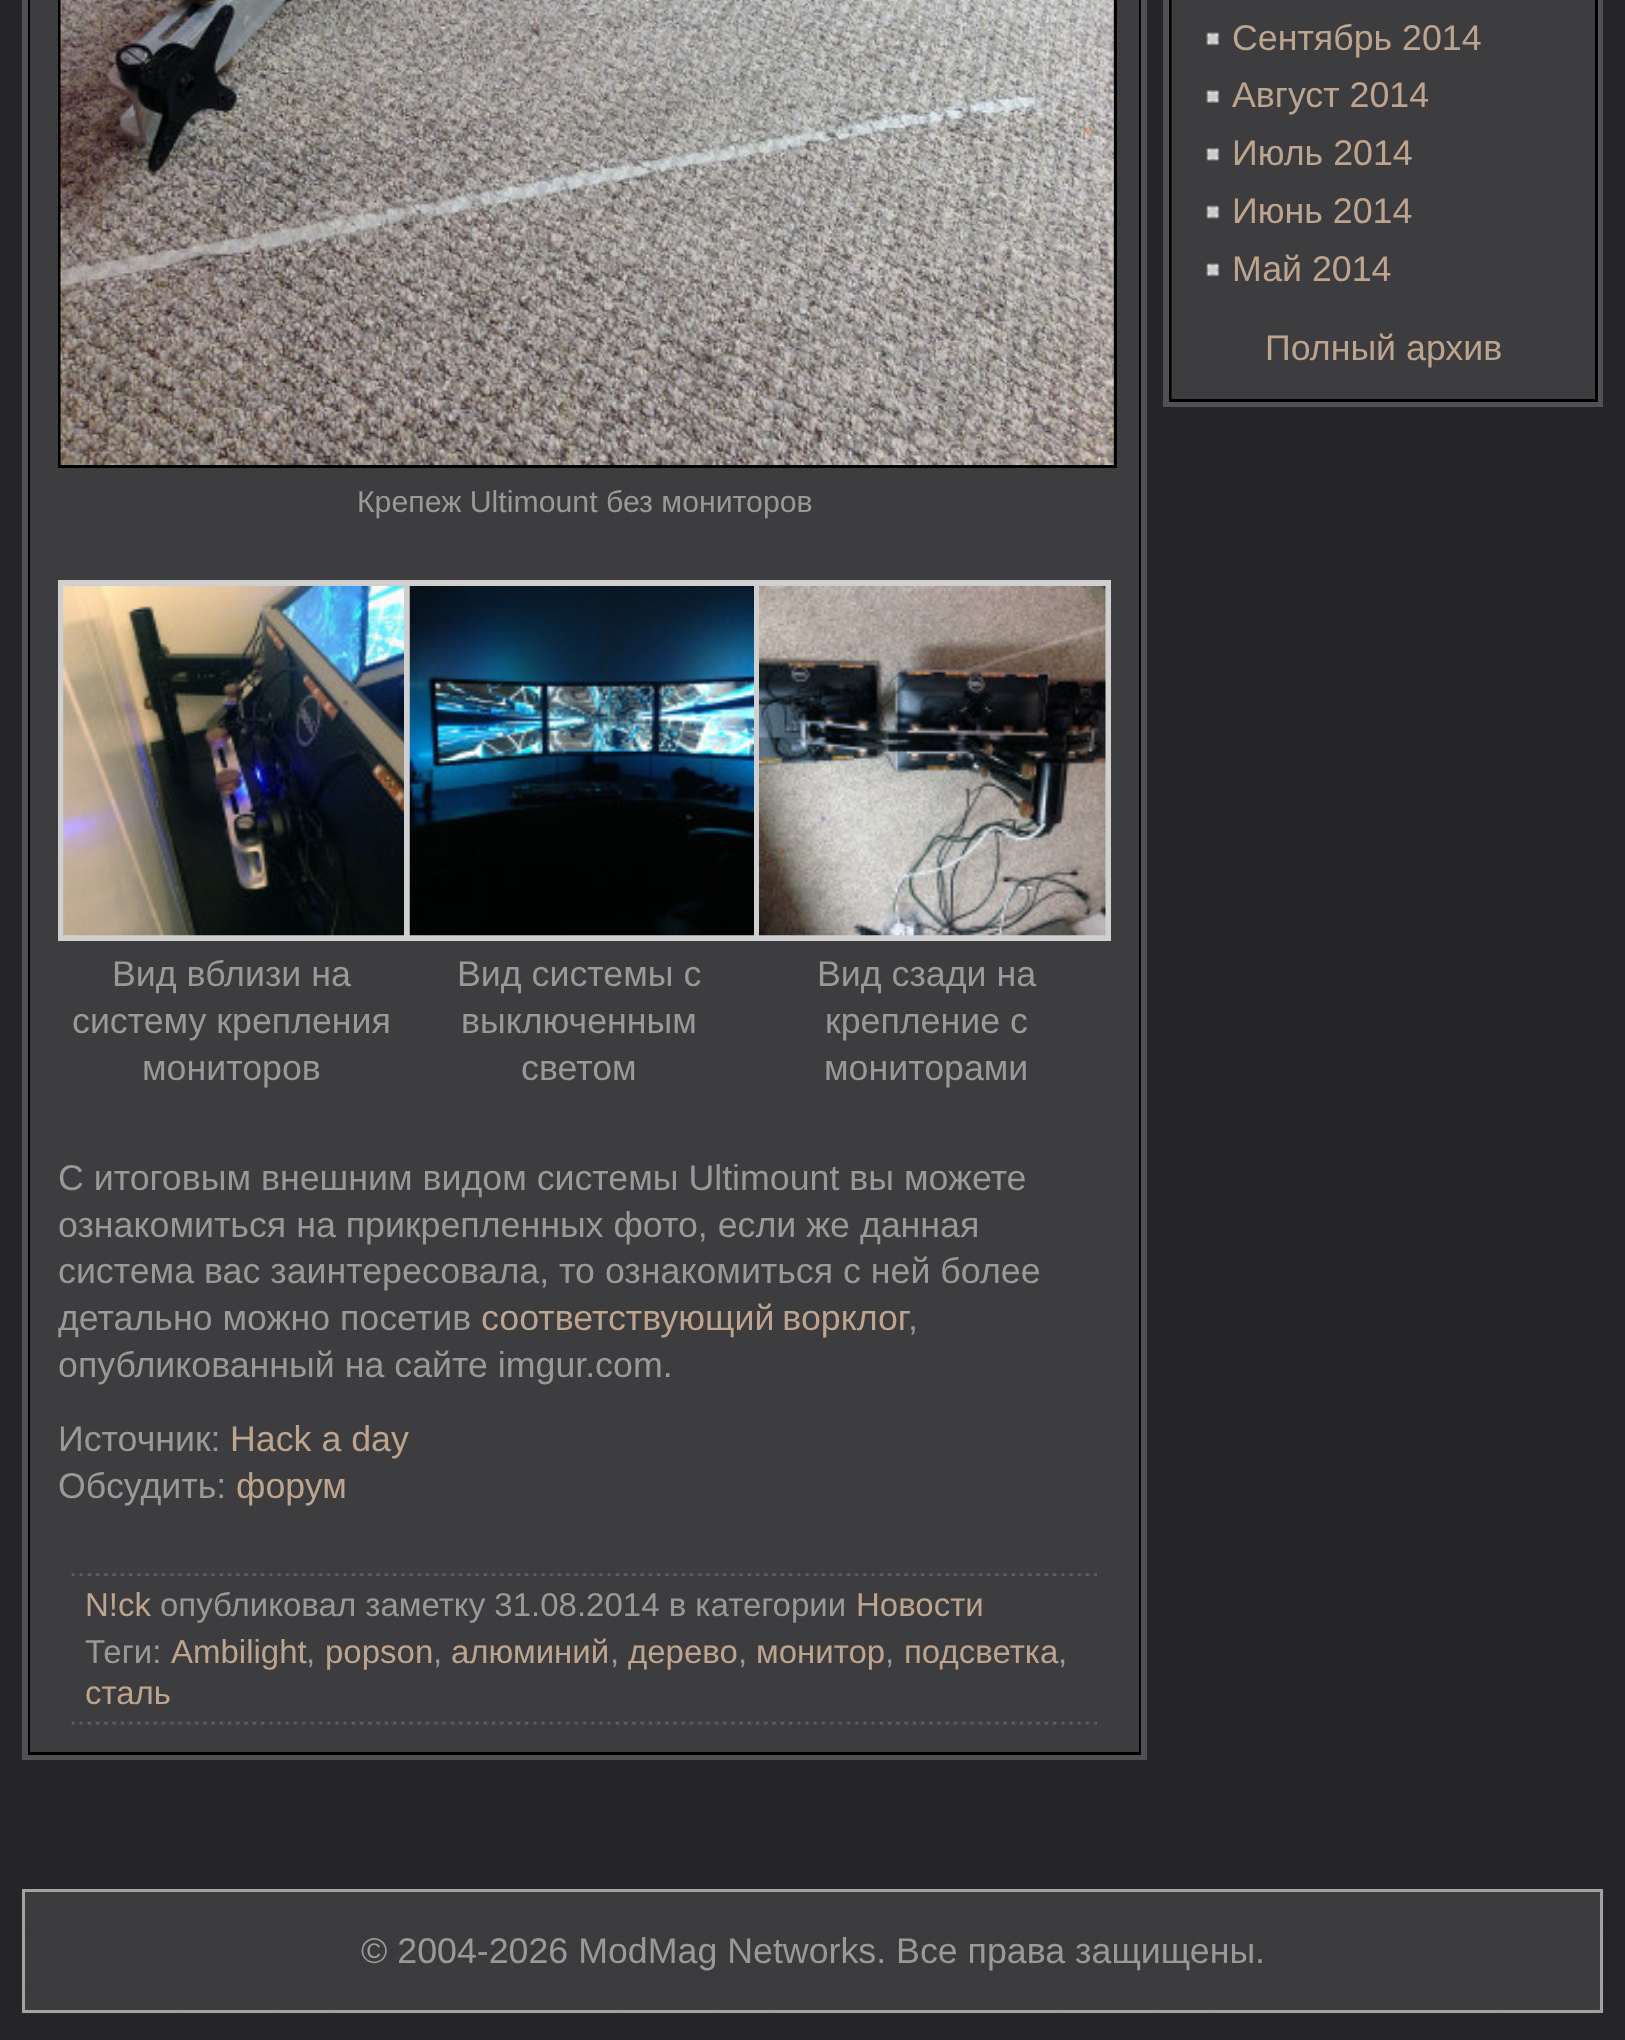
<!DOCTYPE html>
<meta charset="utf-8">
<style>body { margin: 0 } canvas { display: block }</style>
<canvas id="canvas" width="1625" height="2040"></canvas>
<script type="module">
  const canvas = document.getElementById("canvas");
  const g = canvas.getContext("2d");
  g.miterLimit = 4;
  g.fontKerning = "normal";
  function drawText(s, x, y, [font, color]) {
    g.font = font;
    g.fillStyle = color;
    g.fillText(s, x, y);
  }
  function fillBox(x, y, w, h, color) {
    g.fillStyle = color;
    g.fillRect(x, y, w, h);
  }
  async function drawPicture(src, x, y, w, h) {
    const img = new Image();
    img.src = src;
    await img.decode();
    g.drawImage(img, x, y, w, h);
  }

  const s1 = ["35.75px Liberation Sans", "#BDA48E"];
  const s2 = ["30.25px Liberation Sans", "#999999"];
  const s3 = ["35.75px Liberation Sans", "#999999"];
  const s4 = ["33px Liberation Sans", "#BDA48E"];
  const s5 = ["33px Liberation Sans", "#999999"];

  fillBox(0, 0, 1625, 2040, "#252427");
  g.strokeStyle = "#515053";
  g.lineWidth = 6;
  g.strokeRect(1166, -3, 434, 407);
  g.strokeStyle = "#000000";
  g.lineWidth = 3;
  g.strokeRect(1170.5, -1.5, 426, 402);
  fillBox(1172, 0, 423, 399, "#3D3D3F");
  fillBox(1171, 0, 1, 399, "#1D1D1E");
  await drawPicture("pic1.png", 1206, 32, 14, 14);
  drawText("Сентябрь 2014", 1232, 50, s1);
  await drawPicture("pic2.png", 1206, 90, 14, 13);
  drawText("Август 2014", 1232, 107, s1);
  await drawPicture("pic3.png", 1206, 148, 14, 13);
  drawText("Июль 2014", 1232, 165, s1);
  await drawPicture("pic4.png", 1206, 205, 14, 14);
  drawText("Июнь 2014", 1232, 223, s1);
  await drawPicture("pic1.png", 1206, 263, 14, 14);
  drawText("Май 2014", 1232, 281, s1);
  drawText("Полный архив", 1265, 360, s1);
  g.strokeStyle = "#515053";
  g.lineWidth = 6;
  g.strokeRect(25, -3, 1119, 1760);
  g.strokeStyle = "#000000";
  g.lineWidth = 3;
  g.strokeRect(29.5, -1.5, 1110, 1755);
  fillBox(30, 0, 1109, 1752, "#3D3D3F");
  g.strokeRect(59.5, -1.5, 1056, 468);
  await drawPicture("pic5.png", 60, 0, 1054, 465);
  drawText("Крепеж Ultimount без мониторов", 357, 512, s2);
  g.strokeStyle = "#CFCFCF";
  g.lineWidth = 6;
  g.strokeRect(61, 583, 351, 355);
  await drawPicture("pic6.png", 63, 586, 341, 350);
  drawText("Вид вблизи на", 112, 986, s3);
  drawText("систему крепления", 72, 1033, s3);
  drawText("мониторов", 142, 1080, s3);
  g.strokeRect(407, 583, 355, 355);
  await drawPicture("pic7.png", 409, 586, 345, 350);
  drawText("Вид системы с", 457, 986, s3);
  drawText("выключенным", 461, 1033, s3);
  drawText("светом", 521, 1080, s3);
  g.strokeRect(757, 583, 351, 355);
  await drawPicture("pic8.png", 759, 586, 347, 350);
  drawText("Вид сзади на", 817, 986, s3);
  drawText("крепление с", 825, 1033, s3);
  drawText("мониторами", 824, 1080, s3);
  drawText("С итоговым внешним видом системы Ultimount вы можете", 58, 1190, s3);
  drawText("ознакомиться на прикрепленных фото, если же данная", 58, 1237, s3);
  drawText("система вас заинтересовала, то ознакомиться с ней более", 58, 1283, s3);
  drawText("детально можно посетив", 58, 1330, s3);
  g.wordSpacing = "-2px";
  drawText("соответствующий ворклог", 481, 1330, s1);
  g.wordSpacing = "0px";
  drawText(",", 908, 1330, s3);
  drawText("опубликованный на сайте imgur.com.", 58, 1377, s3);
  drawText("Источник:", 58, 1451, s3);
  drawText("Hack a day", 230, 1451, s1);
  drawText("Обсудить:", 58, 1498, s3);
  drawText("форум", 236, 1498, s1);
  await drawPicture("pic9.png", 71, 1573, 1026, 3);
  await drawPicture("pic10.png", 71, 1721, 1026, 4);
  drawText("N!ck", 85, 1616, s4);
  drawText("опубликовал заметку 31.08.2014 в категории", 160, 1616, s5);
  drawText("Новости", 856, 1616, s4);
  drawText("Теги:", 85, 1663, s5);
  drawText("Ambilight", 171, 1663, s4);
  drawText(",", 306, 1663, s5);
  drawText("popson", 325, 1663, s4);
  drawText(",", 433, 1663, s5);
  drawText("алюминий", 451, 1663, s4);
  drawText(",", 610, 1663, s5);
  drawText("дерево", 628, 1663, s4);
  drawText(",", 738, 1663, s5);
  drawText("монитор", 756, 1663, s4);
  drawText(",", 885, 1663, s5);
  drawText("подсветка", 904, 1663, s4);
  drawText(",", 1058, 1663, s5);
  drawText("сталь", 85, 1704, s4);
  await drawPicture("pic11.png", 22, 1889, 1582, 125);
  g.strokeStyle = "#A2A2A2";
  g.lineWidth = 3;
  g.strokeRect(23.5, 1890.5, 1578, 121);
  drawText("© 2004-2026 ModMag Networks. Все права защищены.", 361, 1963, s3);
</script>
